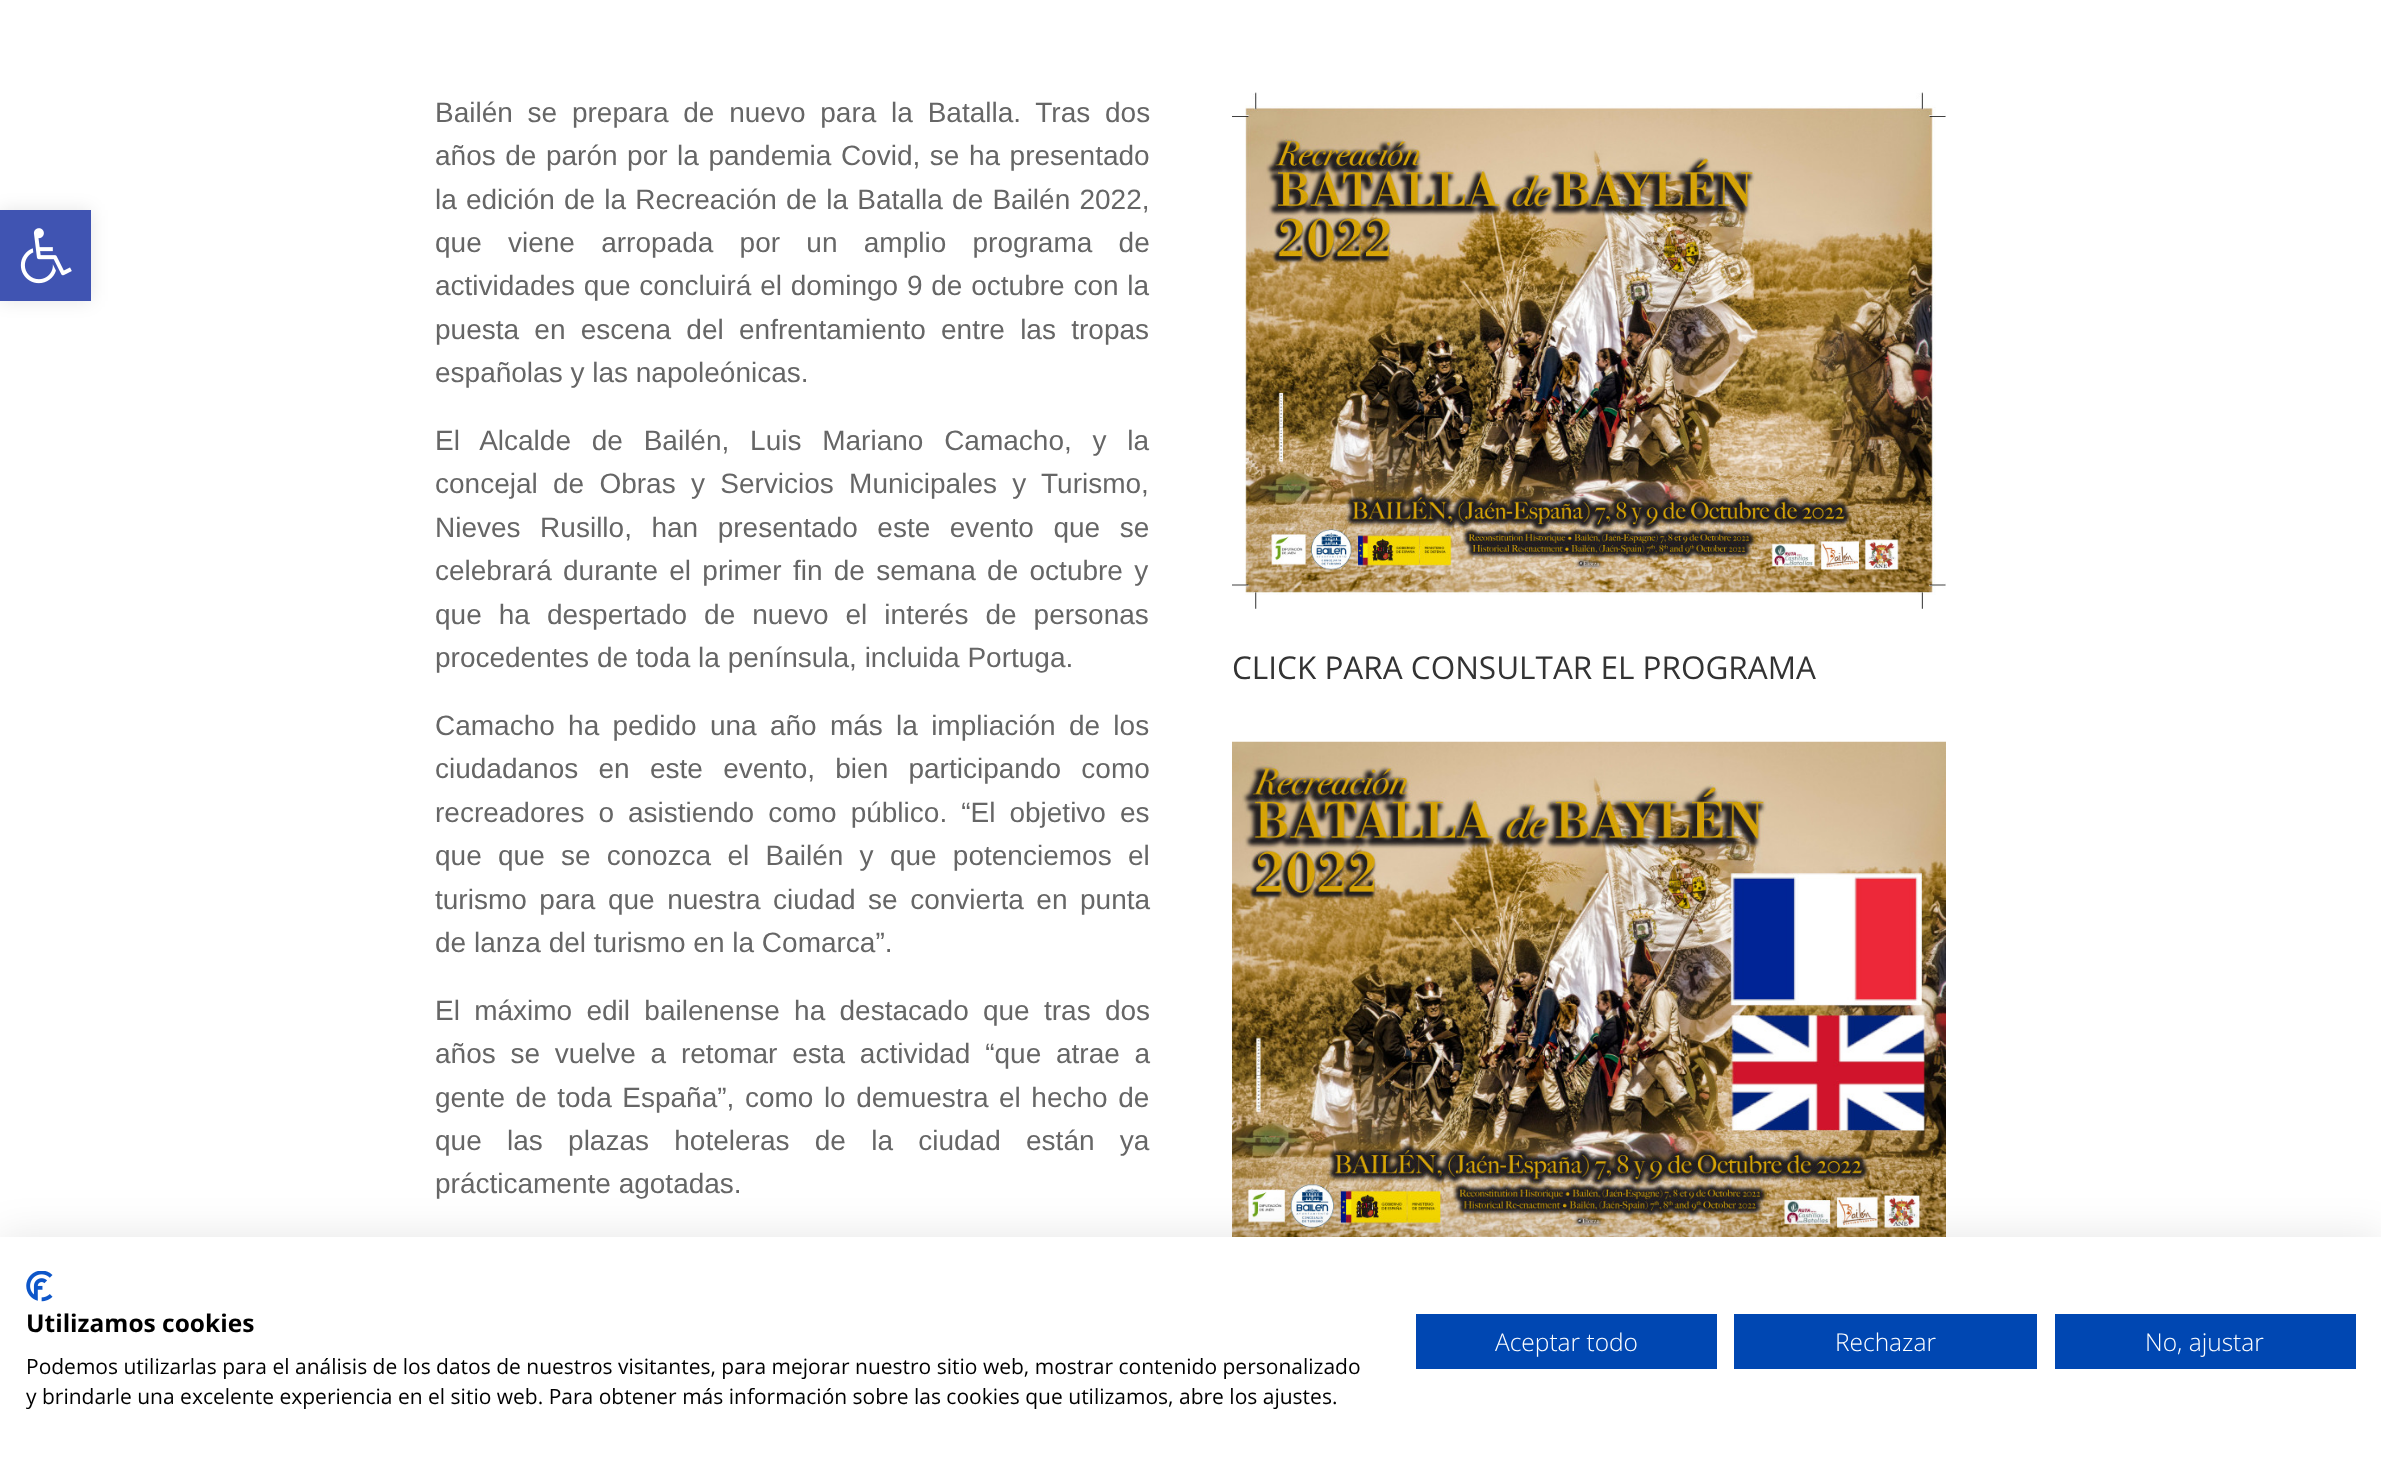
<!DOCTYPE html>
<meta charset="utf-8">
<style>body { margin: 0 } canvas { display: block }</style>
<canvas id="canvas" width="2381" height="1459"></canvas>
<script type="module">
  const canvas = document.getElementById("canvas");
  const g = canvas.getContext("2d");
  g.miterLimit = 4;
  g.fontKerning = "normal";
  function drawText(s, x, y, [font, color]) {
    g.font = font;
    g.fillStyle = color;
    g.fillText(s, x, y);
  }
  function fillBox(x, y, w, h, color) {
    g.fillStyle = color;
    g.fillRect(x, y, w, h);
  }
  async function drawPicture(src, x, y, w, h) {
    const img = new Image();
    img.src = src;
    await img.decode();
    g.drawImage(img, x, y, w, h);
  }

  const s1 = ["28px Liberation Sans", "#666666"];
  const s2 = ["31.5px Open Sans", "#333333"];
  const s3 = ["bold 24.5px Open Sans", "#000000"];
  const s4 = ["21px Open Sans", "#000000"];
  const s5 = ["300 24.5px Open Sans", "#FFFFFF"];

  fillBox(0, 0, 2381, 1459, "#FFFFFF");
  g.fillStyle = "rgba(0, 0, 0, 0.1)";
  g.filter = "blur(9px)";
  g.beginPath();
  g.rect(0, 210, 91, 91);
  g.fill();
  g.filter = "none";
  fillBox(0, 210, 91, 91, "#4054B2");
  await drawPicture("pic1.png", 20, 228, 52, 56);
  g.wordSpacing = "7px";
  drawText("Bailén se prepara de nuevo para la Batalla. Tras dos", 435, 122, s1);
  g.wordSpacing = "1.75px";
  drawText("años de parón por la pandemia Covid, se ha presentado", 435, 165, s1);
  g.wordSpacing = "1.4px";
  drawText("la edición de la Recreación de la Batalla de Bailén 2022,", 435, 209, s1);
  g.wordSpacing = "18.5px";
  drawText("que viene arropada por un amplio programa de", 435, 252, s1);
  g.wordSpacing = "1px";
  drawText("actividades que concluirá el domingo 9 de octubre con la", 435, 295, s1);
  g.wordSpacing = "7.5px";
  drawText("puesta en escena del enfrentamiento entre las tropas", 435, 339, s1);
  g.wordSpacing = "0px";
  drawText("españolas y las napoleónicas.", 435, 382, s1);
  g.wordSpacing = "13px";
  drawText("El Alcalde de Bailén, Luis Mariano Camacho, y la", 435, 450, s1);
  g.wordSpacing = "7.5px";
  drawText("concejal de Obras y Servicios Municipales y Turismo,", 435, 493, s1);
  g.wordSpacing = "11.75px";
  drawText("Nieves Rusillo, han presentado este evento que se", 435, 537, s1);
  g.wordSpacing = "3.5px";
  drawText("celebrará durante el primer fin de semana de octubre y", 435, 580, s1);
  g.wordSpacing = "9.25px";
  drawText("que ha despertado de nuevo el interés de personas", 435, 624, s1);
  g.wordSpacing = "0px";
  drawText("procedentes de toda la península, incluida Portuga.", 435, 667, s1);
  g.wordSpacing = "5.5px";
  drawText("Camacho ha pedido una año más la impliación de los", 435, 735, s1);
  g.wordSpacing = "12.5px";
  drawText("ciudadanos en este evento, bien participando como", 435, 778, s1);
  g.wordSpacing = "6.25px";
  drawText("recreadores o asistiendo como público. “El objetivo es", 435, 822, s1);
  g.wordSpacing = "8.5px";
  drawText("que que se conozca el Bailén y que potenciemos el", 435, 865, s1);
  g.wordSpacing = "4.75px";
  drawText("turismo para que nuestra ciudad se convierta en punta", 435, 909, s1);
  g.wordSpacing = "0px";
  drawText("de lanza del turismo en la Comarca”.", 435, 952, s1);
  g.wordSpacing = "6.5px";
  drawText("El máximo edil bailenense ha destacado que tras dos", 435, 1020, s1);
  g.wordSpacing = "7px";
  drawText("años se vuelve a retomar esta actividad “que atrae a", 435, 1063, s1);
  g.wordSpacing = "2.75px";
  drawText("gente de toda España”, como lo demuestra el hecho de", 435, 1107, s1);
  g.wordSpacing = "17.5px";
  drawText("que las plazas hoteleras de la ciudad están ya", 435, 1150, s1);
  g.wordSpacing = "0px";
  drawText("prácticamente agotadas.", 435, 1193, s1);
  await drawPicture("pic2.png", 1232, 92, 714, 517);
  drawText("CLICK PARA CONSULTAR EL PROGRAMA", 1232, 679, s2);
  await drawPicture("pic3.png", 1232, 741, 714, 496);
  g.fillStyle = "rgba(0, 0, 0, 0.1)";
  g.filter = "blur(21px)";
  g.beginPath();
  g.rect(0, 1237, 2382, 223);
  g.fill();
  g.filter = "none";
  fillBox(0, 1237, 2381, 222, "#FFFFFF");
  await drawPicture("pic4.png", 26, 1271, 27, 31);
  drawText("Utilizamos cookies", 26, 1332, s3);
  drawText("Podemos utilizarlas para el análisis de los datos de nuestros visitantes, para mejorar nuestro sitio web, mostrar contenido personalizado", 26, 1374, s4);
  drawText("y brindarle una excelente experiencia en el sitio web. Para obtener más información sobre las cookies que utilizamos, abre los ajustes.", 26, 1404, s4);
  fillBox(1416, 1314, 301, 55, "#0047B2");
  drawText("Aceptar todo", 1495, 1351, s5);
  fillBox(1734, 1314, 303, 55, "#0047B2");
  drawText("Rechazar", 1835, 1351, s5);
  fillBox(2055, 1314, 301, 55, "#0047B2");
  drawText("No, ajustar", 2145, 1351, s5);
</script>
